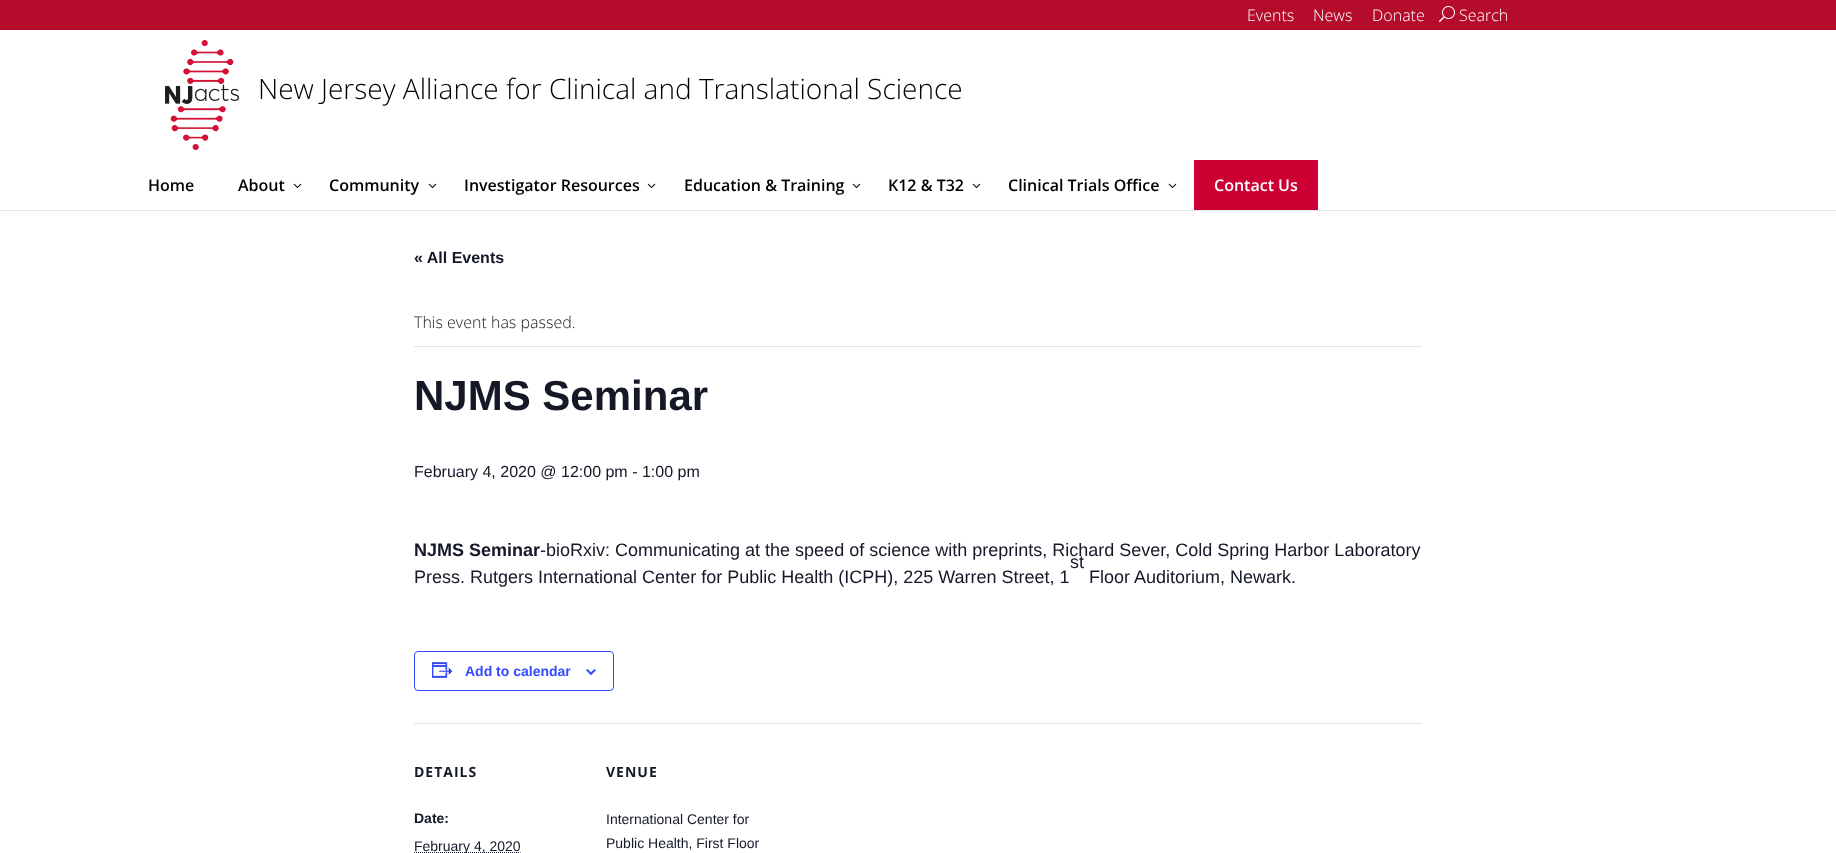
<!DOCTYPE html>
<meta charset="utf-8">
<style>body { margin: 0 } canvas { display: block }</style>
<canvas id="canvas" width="1836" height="853"></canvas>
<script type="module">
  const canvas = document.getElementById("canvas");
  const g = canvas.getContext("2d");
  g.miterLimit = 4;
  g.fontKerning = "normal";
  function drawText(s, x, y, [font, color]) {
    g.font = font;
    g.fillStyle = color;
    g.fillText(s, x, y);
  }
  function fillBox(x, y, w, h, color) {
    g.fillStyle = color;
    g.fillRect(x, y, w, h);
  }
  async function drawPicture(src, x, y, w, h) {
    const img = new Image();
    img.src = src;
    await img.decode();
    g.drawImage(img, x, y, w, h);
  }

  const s1 = ["300 16px Open Sans", "#FFFFFF"];
  const s2 = ["300 28px Open Sans", "#000000"];
  const s3 = ["600 16px Open Sans", "#000000"];
  const s4 = ["600 16px Open Sans", "#FFFFFF"];
  const s5 = ["bold 16px Liberation Sans", "#141827"];
  const s6 = ["300 16px Open Sans", "#222222"];
  const s7 = ["bold 42px Liberation Sans", "#141827"];
  const s8 = ["16px Liberation Sans", "#141827"];
  const s9 = ["bold 18px Liberation Sans", "#141827"];
  const s10 = ["18px Liberation Sans", "#141827"];
  const s11 = ["bold 14px Liberation Sans", "#334AFF"];
  const s12 = ["bold 14px Open Sans", "#141827"];
  const s13 = ["bold 14px Liberation Sans", "#141827"];
  const s14 = ["14px Liberation Sans", "#141827"];

  fillBox(0, 0, 1836, 853, "#FFFFFF");
  fillBox(0, 0, 1836, 30, "#B50C2B");
  drawText("Events", 1247, 21, s1);
  drawText("News", 1313, 21, s1);
  drawText("Donate", 1372, 21, s1);
  await drawPicture("pic1.png", 1439, 6, 16, 16);
  drawText("Search", 1459, 21, s1);
  fillBox(0, 210, 1836, 1, "#E6E6E6");
  await drawPicture("pic2.png", 165, 40, 74, 110);
  drawText("New Jersey Alliance for Clinical and Translational Science", 258, 99, s2);
  drawText("Home", 148, 191, s3);
  drawText("About", 238, 191, s3);
  await drawPicture("pic3.png", 293, 183, 9, 5);
  drawText("Community", 329, 191, s3);
  await drawPicture("pic3.png", 428, 183, 9, 5);
  drawText("Investigator Resources", 464, 191, s3);
  await drawPicture("pic3.png", 647, 183, 9, 5);
  drawText("Education & Training", 684, 191, s3);
  await drawPicture("pic3.png", 852, 183, 9, 5);
  drawText("K12 & T32", 888, 191, s3);
  await drawPicture("pic3.png", 972, 183, 9, 5);
  drawText("Clinical Trials Office", 1008, 191, s3);
  await drawPicture("pic3.png", 1168, 183, 9, 5);
  fillBox(1194, 160, 124, 50, "#CC0033");
  drawText("Contact Us", 1214, 191, s4);
  drawText("« All Events", 414, 263, s5);
  fillBox(414, 346, 1008, 1, "#E4E4E4");
  drawText("This event has passed.", 414, 328, s6);
  drawText("NJMS Seminar", 414, 410, s7);
  drawText("February 4, 2020 @ 12:00 pm - 1:00 pm", 414, 477, s8);
  drawText("NJMS Seminar", 414, 556, s9);
  drawText("-bioRxiv: Communicating at the speed of science with preprints, Richard Sever, Cold Spring Harbor Laboratory", 540, 556, s10);
  drawText("st", 1070, 568, s10);
  drawText("Press. Rutgers International Center for Public Health (ICPH), 225 Warren Street, 1", 414, 583, s10);
  drawText("Floor Auditorium, Newark.", 1089, 583, s10);
  g.beginPath();
  g.roundRect(414.5, 651.5, 199, 39, 3.5);
  g.strokeStyle = "#334AFF";
  g.stroke();
  await drawPicture("pic4.png", 432, 662, 21, 16);
  drawText("Add to calendar", 465, 676, s11);
  await drawPicture("pic5.png", 586, 669, 10, 6);
  fillBox(414, 723, 1008, 1, "#E4E4E4");
  g.letterSpacing = "1px";
  drawText("DETAILS", 414, 777, s12);
  g.letterSpacing = "0px";
  drawText("Date:", 414, 823, s13);
  g.beginPath();
  g.moveTo(414, 852.5);
  g.lineTo(520.5, 852.5);
  g.strokeStyle = "#141827";
  g.setLineDash([1, 1]);
  g.stroke();
  drawText("February 4, 2020", 414, 851, s14);
  g.letterSpacing = "1px";
  drawText("VENUE", 606, 777, s12);
  g.letterSpacing = "0px";
  drawText("International Center for", 606, 824, s14);
  drawText("Public Health, First Floor", 606, 848, s14);
</script>
